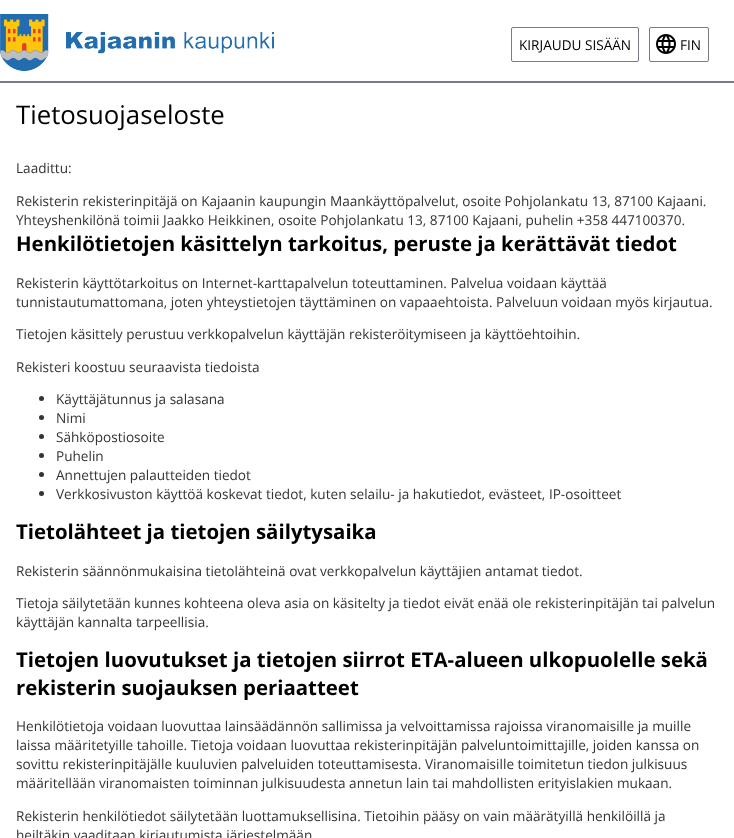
<!DOCTYPE html>
<meta charset="utf-8">
<style>body { margin: 0 } canvas { display: block }</style>
<canvas id="canvas" width="734" height="838"></canvas>
<script type="module">
  const canvas = document.getElementById("canvas");
  const g = canvas.getContext("2d");
  g.miterLimit = 4;
  g.fontKerning = "normal";
  function drawText(s, x, y, [font, color]) {
    g.font = font;
    g.fillStyle = color;
    g.fillText(s, x, y);
  }
  function fillBox(x, y, w, h, color) {
    g.fillStyle = color;
    g.fillRect(x, y, w, h);
  }
  async function drawPicture(src, x, y, w, h) {
    const img = new Image();
    img.src = src;
    await img.decode();
    g.drawImage(img, x, y, w, h);
  }

  const s1 = ["13.6px Open Sans", "#000000"];
  const s2 = ["25.75px Open Sans", "#000000"];
  const s3 = ["13.6px Open Sans", "#333333"];
  const s4 = ["bold 20.4px Open Sans", "#000000"];

  fillBox(0, 0, 734, 838, "#FFFFFF");
  fillBox(0, 81, 734, 2, "#7B7A86");
  await drawPicture("pic1.png", 0, 14, 274, 57);
  g.beginPath();
  g.roundRect(511.5, 27.5, 127, 34, 1.5);
  g.strokeStyle = "#7B7A86";
  g.stroke();
  drawText("KIRJAUDU SISÄÄN", 519, 50, s1);
  await drawPicture("pic2.png", 656, 34, 20, 20);
  g.beginPath();
  g.roundRect(649.5, 27.5, 59, 34, 1.5);
  g.stroke();
  drawText("FIN", 680, 50, s1);
  drawText("Tietosuojaseloste", 16, 124, s2);
  drawText("Laadittu:", 16, 173, s3);
  drawText("Rekisterin rekisterinpitäjä on Kajaanin kaupungin Maankäyttöpalvelut, osoite Pohjolankatu 13, 87100 Kajaani.", 16, 206, s3);
  drawText("Yhteyshenkilönä toimii Jaakko Heikkinen, osoite Pohjolankatu 13, 87100 Kajaani, puhelin +358 447100370.", 16, 225, s3);
  drawText("Henkilötietojen käsittelyn tarkoitus, peruste ja kerättävät tiedot", 16, 251, s4);
  drawText("Rekisterin käyttötarkoitus on Internet-karttapalvelun toteuttaminen. Palvelua voidaan käyttää", 16, 288, s3);
  drawText("tunnistautumattomana, joten yhteystietojen täyttäminen on vapaaehtoista. Palveluun voidaan myös kirjautua.", 16, 307, s3);
  drawText("Tietojen käsittely perustuu verkkopalvelun käyttäjän rekisteröitymiseen ja käyttöehtoihin.", 16, 339, s3);
  drawText("Rekisteri koostuu seuraavista tiedoista", 16, 372, s3);
  g.beginPath();
  g.arc(41.5, 398.5, 2.5, 0, Math.PI * 2);
  g.fill();
  drawText("Käyttäjätunnus ja salasana", 56, 404, s3);
  g.beginPath();
  g.arc(41.5, 417.5, 2.5, 0, Math.PI * 2);
  g.fill();
  drawText("Nimi", 56, 423, s3);
  g.beginPath();
  g.arc(41.5, 436.5, 2.5, 0, Math.PI * 2);
  g.fill();
  drawText("Sähköpostiosoite", 56, 442, s3);
  g.beginPath();
  g.arc(41.5, 455.5, 2.5, 0, Math.PI * 2);
  g.fill();
  drawText("Puhelin", 56, 461, s3);
  g.beginPath();
  g.arc(41.5, 474.5, 2.5, 0, Math.PI * 2);
  g.fill();
  drawText("Annettujen palautteiden tiedot", 56, 480, s3);
  g.beginPath();
  g.arc(41.5, 493.5, 2.5, 0, Math.PI * 2);
  g.fill();
  drawText("Verkkosivuston käyttöä koskevat tiedot, kuten selailu- ja hakutiedot, evästeet, IP-osoitteet", 56, 499, s3);
  drawText("Tietolähteet ja tietojen säilytysaika", 16, 539, s4);
  drawText("Rekisterin säännönmukaisina tietolähteinä ovat verkkopalvelun käyttäjien antamat tiedot.", 16, 576, s3);
  drawText("Tietoja säilytetään kunnes kohteena oleva asia on käsitelty ja tiedot eivät enää ole rekisterinpitäjän tai palvelun", 16, 608, s3);
  drawText("käyttäjän kannalta tarpeellisia.", 16, 627, s3);
  drawText("Tietojen luovutukset ja tietojen siirrot ETA-alueen ulkopuolelle sekä", 16, 667, s4);
  drawText("rekisterin suojauksen periaatteet", 16, 695, s4);
  drawText("Henkilötietoja voidaan luovuttaa lainsäädännön sallimissa ja velvoittamissa rajoissa viranomaisille ja muille", 16, 731, s3);
  drawText("laissa määritetyille tahoille. Tietoja voidaan luovuttaa rekisterinpitäjän palveluntoimittajille, joiden kanssa on", 16, 750, s3);
  drawText("sovittu rekisterinpitäjälle kuuluvien palveluiden toteuttamisesta. Viranomaisille toimitetun tiedon julkisuus", 16, 769, s3);
  drawText("määritellään viranomaisten toiminnan julkisuudesta annetun lain tai mahdollisten erityislakien mukaan.", 16, 788, s3);
  drawText("Rekisterin henkilötiedot säilytetään luottamuksellisina. Tietoihin pääsy on vain määrätyillä henkilöillä ja", 16, 821, s3);
  drawText("heiltäkin vaaditaan kirjautumista järjestelmään", 16, 840, s3);
</script>
